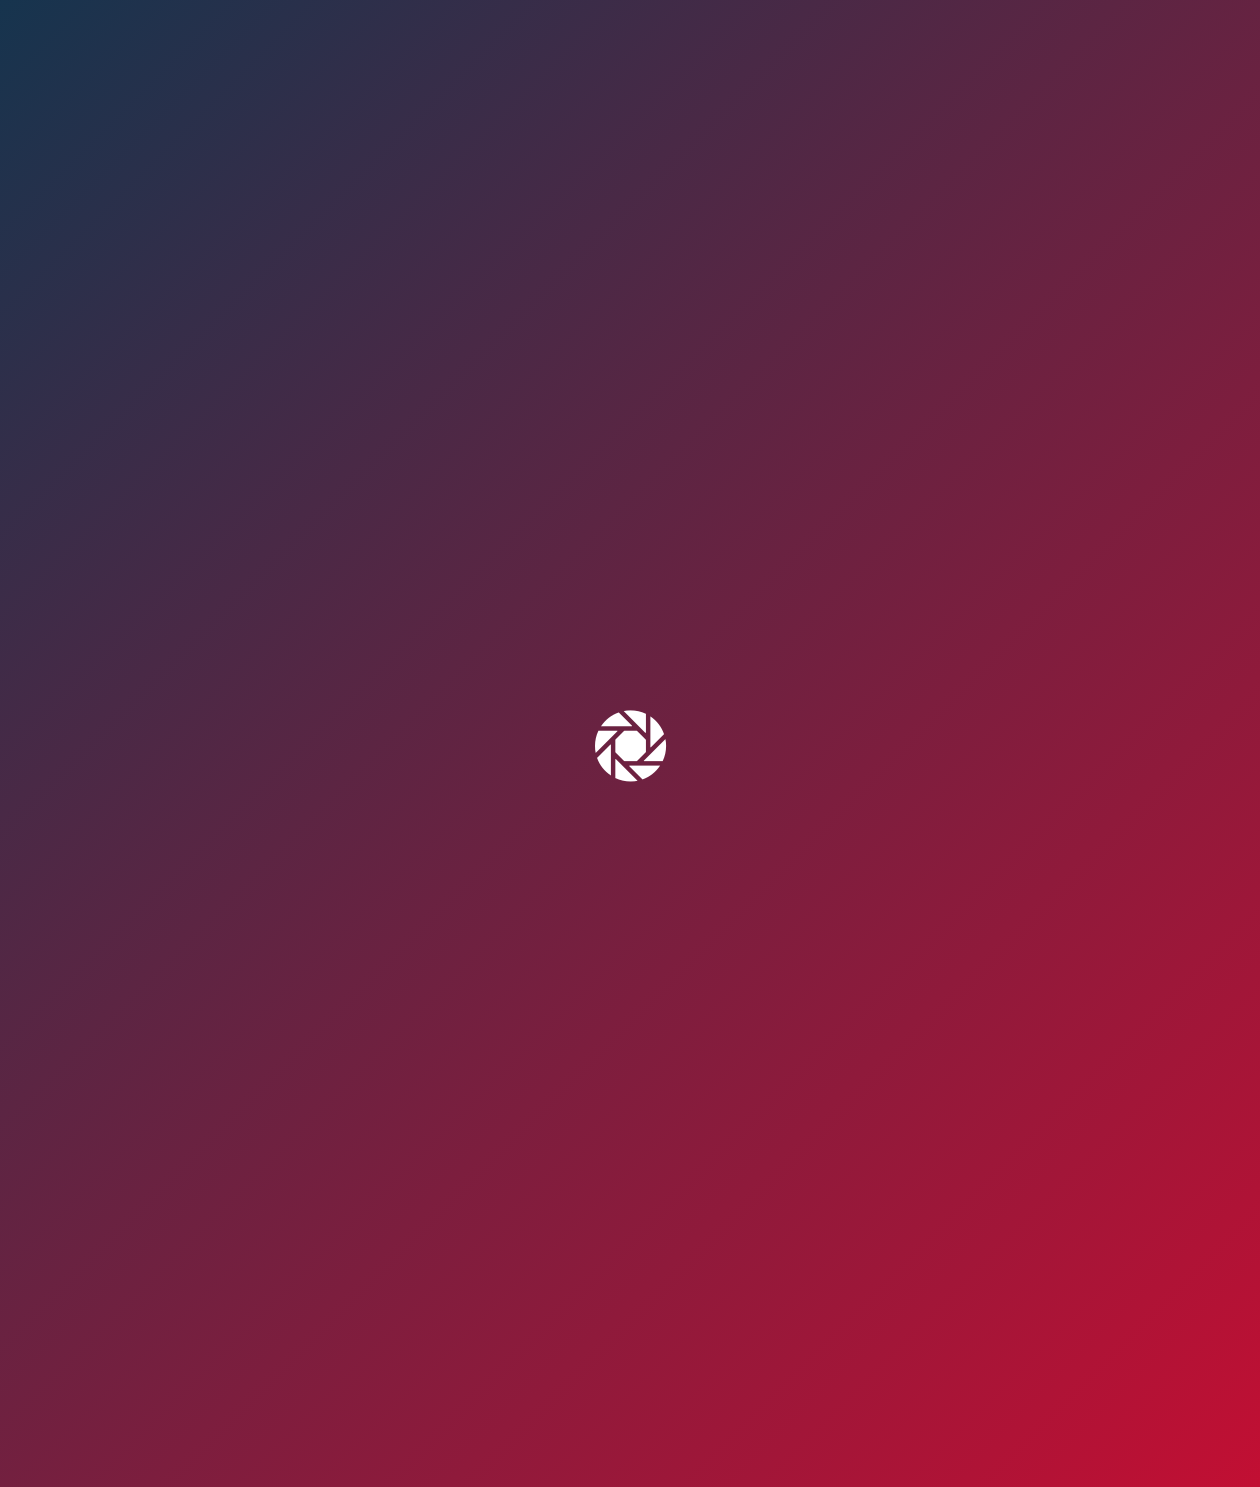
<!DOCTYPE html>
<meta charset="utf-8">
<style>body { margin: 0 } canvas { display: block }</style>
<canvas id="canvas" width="1260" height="1487"></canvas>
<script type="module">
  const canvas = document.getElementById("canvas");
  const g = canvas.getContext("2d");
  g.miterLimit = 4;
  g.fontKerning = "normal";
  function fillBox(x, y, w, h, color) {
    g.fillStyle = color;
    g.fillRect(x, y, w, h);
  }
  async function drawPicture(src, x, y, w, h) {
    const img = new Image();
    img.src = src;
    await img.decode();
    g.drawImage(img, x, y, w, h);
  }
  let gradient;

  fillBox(0, 0, 1260, 1487, "#FFFFFF");
  gradient = g.createLinearGradient(-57, 57, 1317, 1431);
  gradient.addColorStop(0, "#16344E");
  gradient.addColorStop(1, "#C20F33");
  g.fillStyle = gradient;
  g.fillRect(0, 0, 1260, 1487);
  await drawPicture("pic1.png", 595, 710, 72, 72);
</script>
